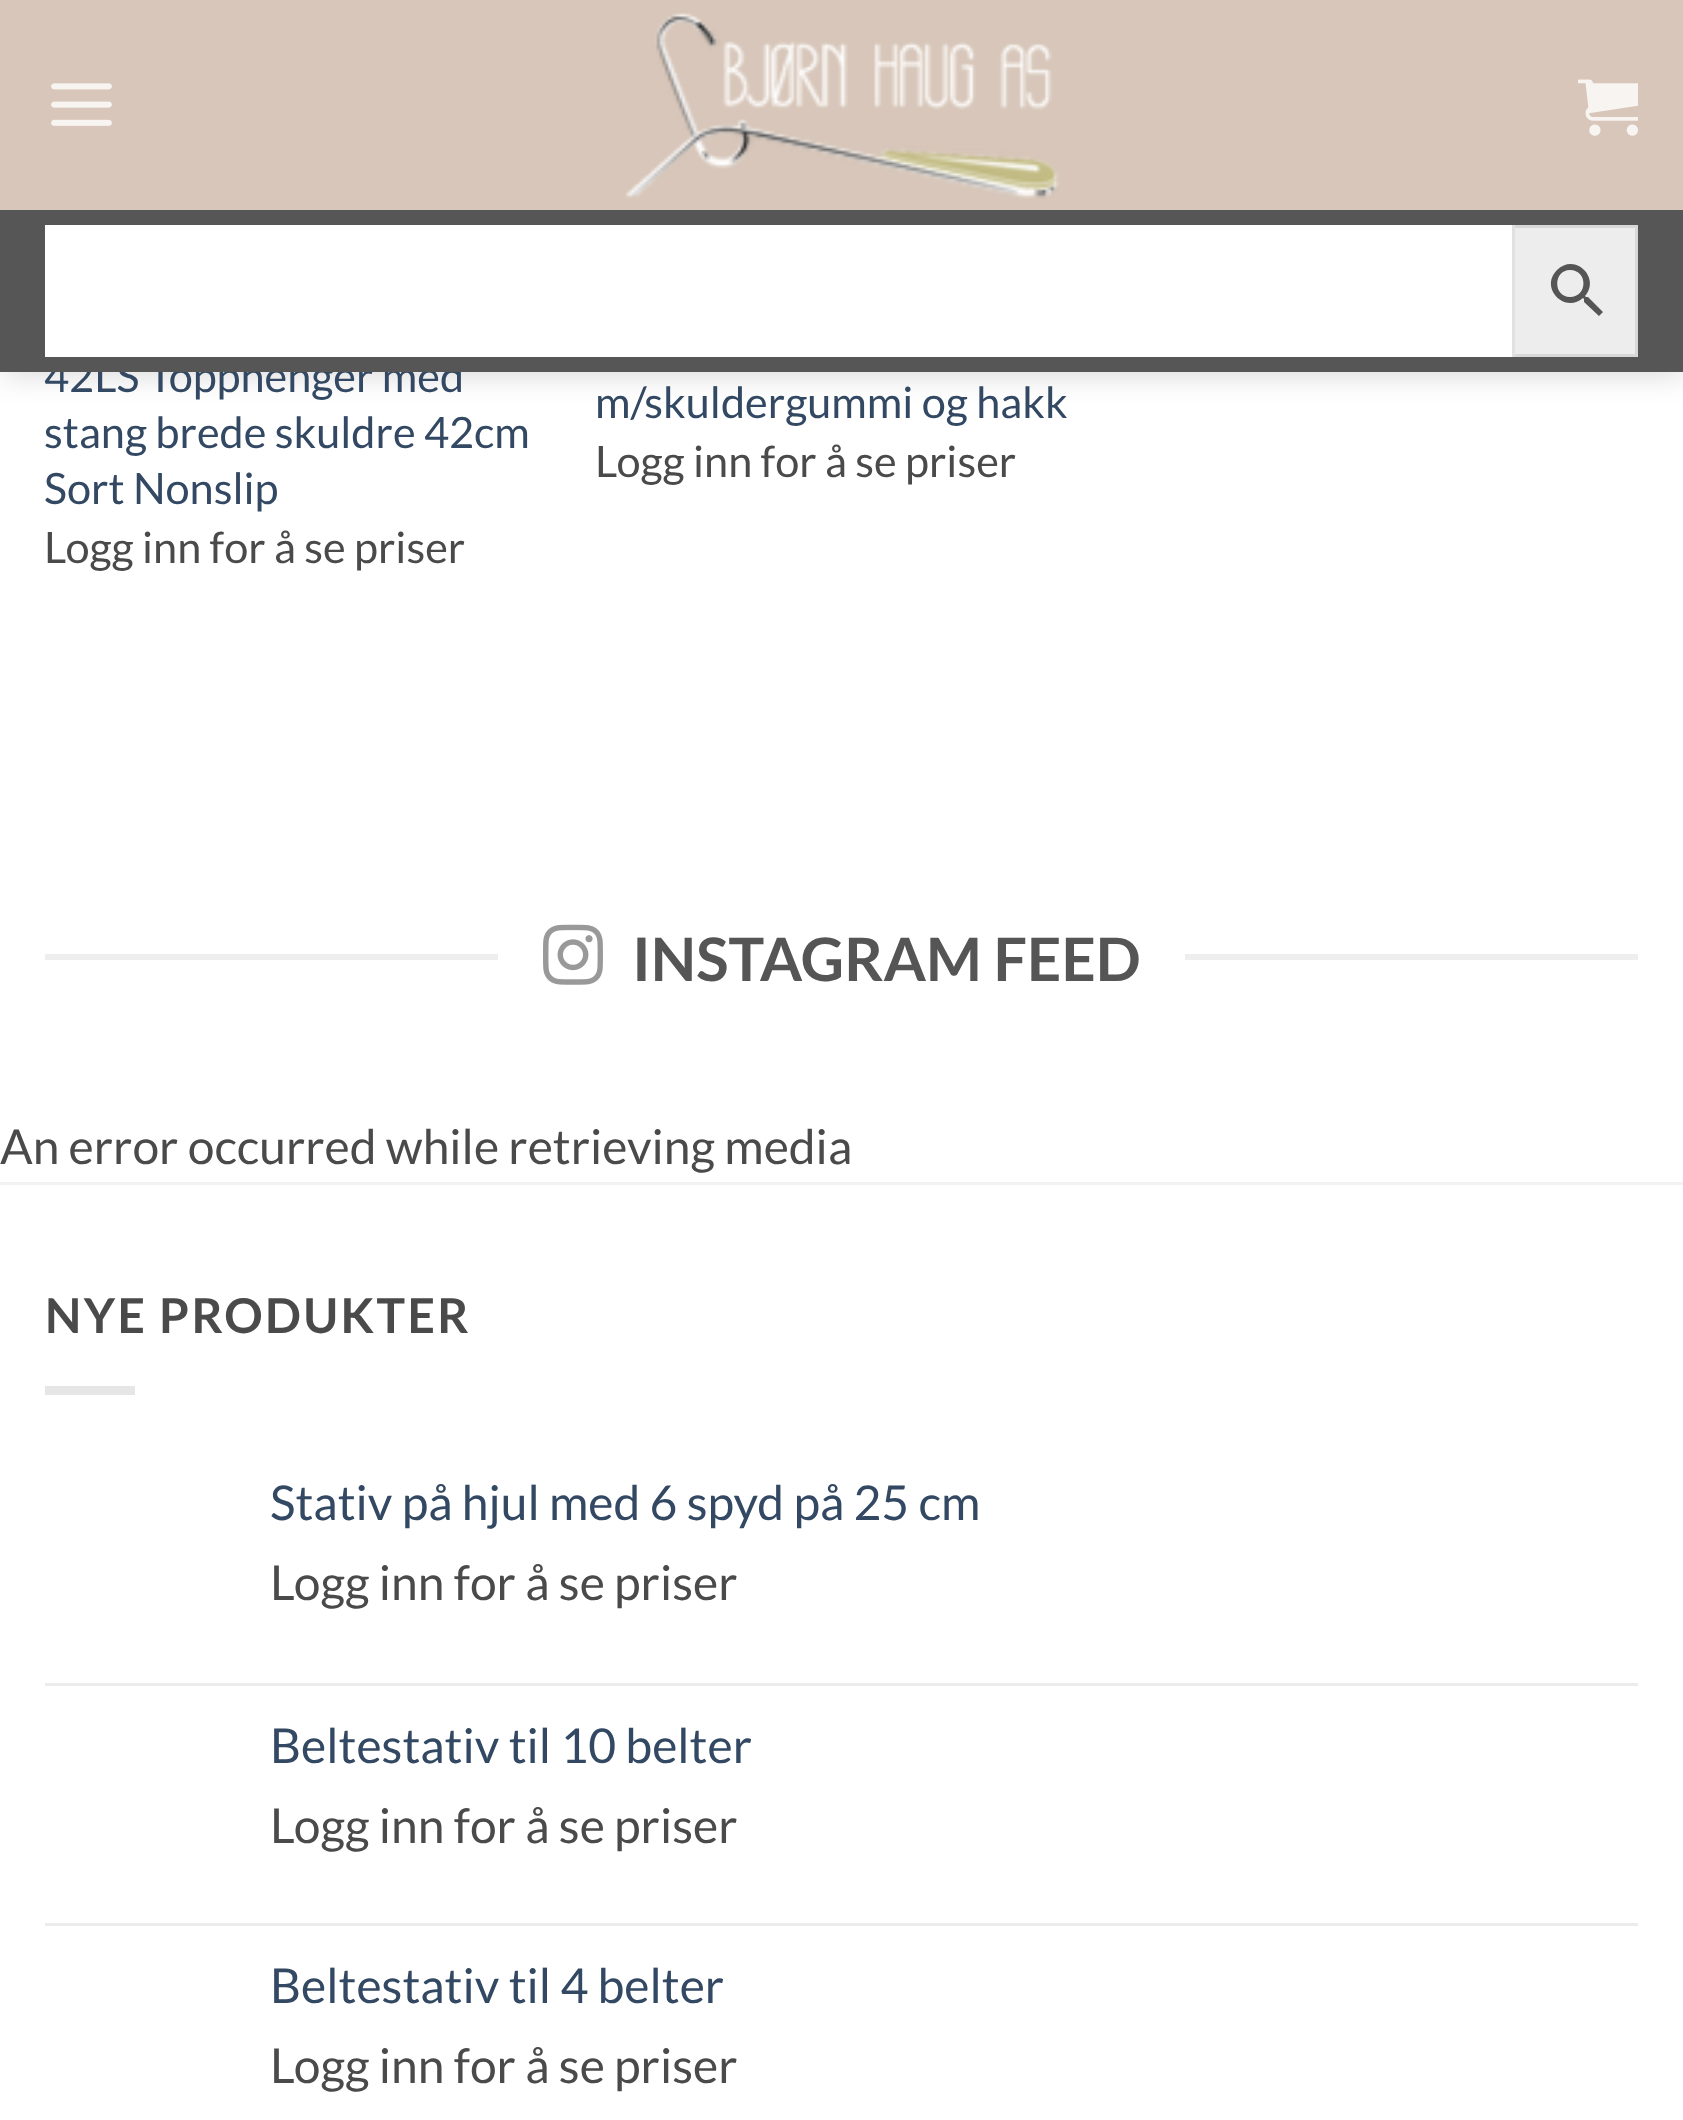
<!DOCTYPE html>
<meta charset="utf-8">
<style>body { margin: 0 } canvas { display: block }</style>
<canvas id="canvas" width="1683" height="2120"></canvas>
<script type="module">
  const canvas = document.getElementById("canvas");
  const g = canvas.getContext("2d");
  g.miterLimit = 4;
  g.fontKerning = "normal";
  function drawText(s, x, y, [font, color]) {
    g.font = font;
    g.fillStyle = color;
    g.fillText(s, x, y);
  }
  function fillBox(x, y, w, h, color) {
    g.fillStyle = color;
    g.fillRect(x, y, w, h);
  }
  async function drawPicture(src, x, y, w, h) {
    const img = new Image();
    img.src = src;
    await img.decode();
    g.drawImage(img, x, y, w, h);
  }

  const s1 = ["43.25px Lato", "#334862"];
  const s2 = ["43.25px Lato", "#4A4A4A"];
  const s3 = ["bold 60px Lato", "#555555"];
  const s4 = ["48px Lato", "#4A4A4A"];
  const s5 = ["bold 48px Lato", "#4A4A4A"];
  const s6 = ["48px Lato", "#334862"];

  fillBox(0, 0, 1683, 2120, "#FFFFFF");
  g.fillStyle = "rgba(0, 0, 0, 0.15)";
  g.filter = "blur(15px)";
  g.beginPath();
  g.rect(3, 3, 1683, 372);
  g.fill();
  g.filter = "none";
  fillBox(0, 0, 1683, 210, "#D7C6B9");
  await drawPicture("pic1.png", 51, 83, 61, 43);
  await drawPicture("pic2.png", 625, 13, 435, 186);
  await drawPicture("pic3.png", 1578, 79, 60, 57);
  drawText("42LS Topphenger med", 44, 392, s1);
  fillBox(0, 210, 1683, 162, "#565656");
  fillBox(45, 225, 1467, 132, "#FFFFFF");
  g.fillStyle = "#EDEDED";
  g.beginPath();
  g.rect(1513.5, 226.5, 123, 129);
  g.fill();
  g.strokeStyle = "#D8D8D8";
  g.lineWidth = 3;
  g.stroke();
  g.fillStyle = "rgba(255, 255, 255, 0.2)";
  g.beginPath();
  g.roundRect(45, 225, 1470, 132, [30, 0, 0, 30]);
  g.fill();
  g.beginPath();
  g.roundRect(46.5, 226.5, 1467, 129, [28.5, 0, 0, 28.5]);
  g.strokeStyle = "rgba(255, 255, 255, 0.09)";
  g.stroke();
  g.fillStyle = "#555555";
  g.beginPath();
  g.moveTo(1588, 297);
  g.lineTo(1586, 297);
  g.lineTo(1585, 296);
  g.bezierCurveTo(1601, 278, 1575, 252, 1557, 270);
  g.bezierCurveTo(1539, 288, 1565, 314, 1583, 298);
  g.lineTo(1584, 299);
  g.lineTo(1584, 302);
  g.lineTo(1599, 316);
  g.lineTo(1603, 312);
  g.closePath();
  g.moveTo(1570, 297);
  g.bezierCurveTo(1553, 297, 1553, 270, 1570, 270);
  g.bezierCurveTo(1588, 270, 1588, 297, 1570, 297);
  g.closePath();
  g.fill();
  drawText("stang brede skuldre 42cm", 44, 448, s1);
  drawText("Sort Nonslip", 44, 504, s1);
  drawText("Logg inn for å se priser", 44, 563, s2);
  drawText("m/skuldergummi og hakk", 595, 418, s1);
  drawText("Logg inn for å se priser", 595, 477, s2);
  fillBox(45, 954, 453, 6, "#EEEEEE");
  await drawPicture("pic4.png", 543, 924, 60, 61);
  drawText("INSTAGRAM FEED", 632, 981, s3);
  fillBox(1185, 954, 453, 6, "#EEEEEE");
  drawText("An error occurred while retrieving media", 0, 1164, s4);
  fillBox(0, 1182, 1683, 3, "#F2F2F2");
  g.letterSpacing = "2.4px";
  drawText("NYE PRODUKTER", 45, 1333, s5);
  fillBox(45, 1386, 90, 9, "#E6E6E6");
  g.letterSpacing = "0px";
  drawText("Stativ på hjul med 6 spyd på 25 cm", 270, 1520, s6);
  drawText("Logg inn for å se priser", 270, 1600, s4);
  fillBox(45, 1683, 1593, 3, "#ECECEC");
  drawText("Beltestativ til 10 belter", 270, 1763, s6);
  drawText("Logg inn for å se priser", 270, 1843, s4);
  fillBox(45, 1923, 1593, 3, "#ECECEC");
  drawText("Beltestativ til 4 belter", 270, 2003, s6);
  drawText("Logg inn for å se priser", 270, 2083, s4);
</script>
